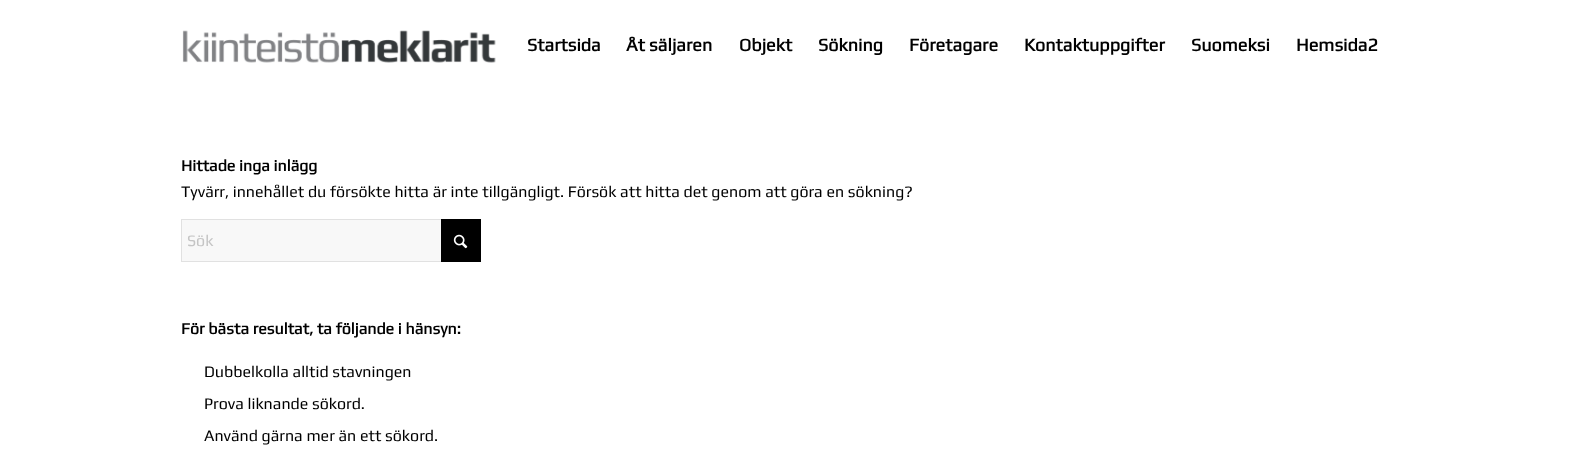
<!DOCTYPE html>
<meta charset="utf-8">
<style>body { margin: 0 } canvas { display: block }</style>
<canvas id="canvas" width="1571" height="468"></canvas>
<script type="module">
  const canvas = document.getElementById("canvas");
  const g = canvas.getContext("2d");
  g.miterLimit = 4;
  g.fontKerning = "normal";
  function drawText(s, x, y, [font, color]) {
    g.font = font;
    g.fillStyle = color;
    g.fillText(s, x, y);
  }
  function fillBox(x, y, w, h, color) {
    g.fillStyle = color;
    g.fillRect(x, y, w, h);
  }
  async function drawPicture(src, x, y, w, h) {
    const img = new Image();
    img.src = src;
    await img.decode();
    g.drawImage(img, x, y, w, h);
  }

  const s1 = ["bold 18px Play", "#000000"];
  const s2 = ["bold 16px Play", "#000000"];
  const s3 = ["16px Play", "#000000"];
  const s4 = ["16px Play", "#C5C5C5"];

  fillBox(0, 0, 1571, 468, "#FFFFFF");
  await drawPicture("pic1.png", 182, 30, 314, 33);
  drawText("Startsida", 527, 51, s1);
  drawText("Åt säljaren", 626, 51, s1);
  drawText("Objekt", 739, 51, s1);
  drawText("Sökning", 818, 51, s1);
  drawText("Företagare", 909, 51, s1);
  drawText("Kontaktuppgifter", 1024, 51, s1);
  drawText("Suomeksi", 1191, 51, s1);
  drawText("Hemsida2", 1296, 51, s1);
  drawText("Hittade inga inlägg", 181, 171, s2);
  drawText("Tyvärr, innehållet du försökte hitta är inte tillgängligt. Försök att hitta det genom att göra en sökning?", 181, 197, s3);
  fillBox(182, 220, 259, 41, "#F8F8F8");
  g.strokeStyle = "#E1E1E1";
  g.strokeRect(181.5, 219.5, 299, 42);
  drawText("Sök", 187, 246, s4);
  fillBox(441, 219, 40, 43, "#000000");
  await drawPicture("pic2.png", 453, 234, 15, 15);
  drawText("För bästa resultat, ta följande i hänsyn:", 181, 334, s2);
  drawText("Dubbelkolla alltid stavningen", 204, 377, s3);
  drawText("Prova liknande sökord.", 204, 409, s3);
  drawText("Använd gärna mer än ett sökord.", 204, 441, s3);
</script>
